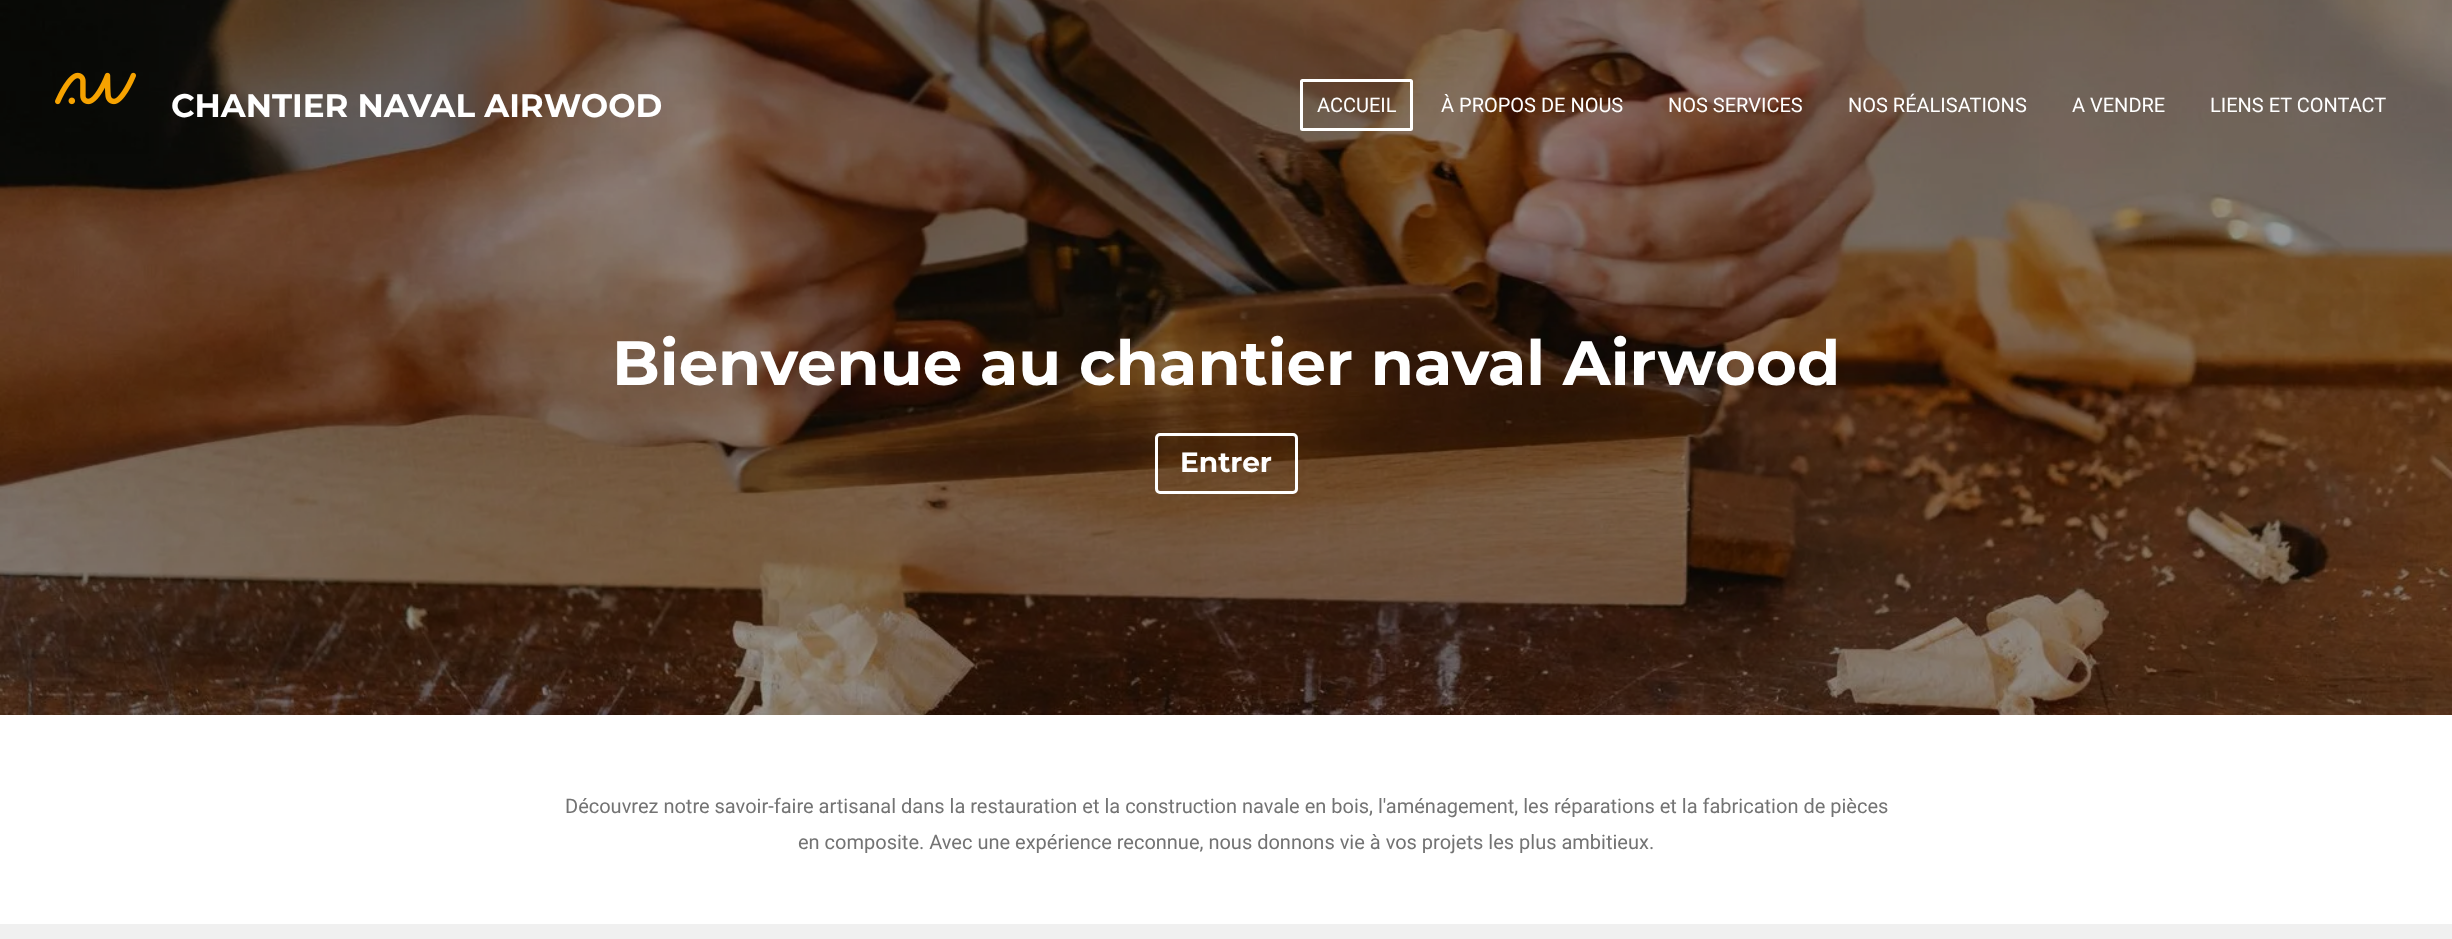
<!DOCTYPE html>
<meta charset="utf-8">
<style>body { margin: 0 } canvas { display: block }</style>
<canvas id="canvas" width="2452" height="939"></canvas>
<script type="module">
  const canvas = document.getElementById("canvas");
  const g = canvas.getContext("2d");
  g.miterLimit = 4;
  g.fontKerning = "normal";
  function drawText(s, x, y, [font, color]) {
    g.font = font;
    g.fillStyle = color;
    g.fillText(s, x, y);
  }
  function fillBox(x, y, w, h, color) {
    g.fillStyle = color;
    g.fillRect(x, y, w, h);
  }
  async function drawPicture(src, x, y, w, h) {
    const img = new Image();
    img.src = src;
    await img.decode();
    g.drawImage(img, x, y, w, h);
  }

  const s1 = ["bold 32.5px Montserrat", "#FFFFFF"];
  const s2 = ["20px Roboto", "#FFFFFF"];
  const s3 = ["bold 62.5px Montserrat", "#FFFFFF"];
  const s4 = ["bold 28px Montserrat", "#FFFFFF"];
  const s5 = ["20px Roboto", "#737373"];

  fillBox(0, 0, 2452, 939, "#FFFFFF");
  await drawPicture("pic2.png", 0, 0, 2452, 715);
  await drawPicture("pic1.png", 55, 72, 81, 33);
  drawText("CHANTIER NAVAL AIRWOOD", 171, 117, s1);
  g.beginPath();
  g.roundRect(1301.5, 80.5, 110, 49, 1);
  g.strokeStyle = "#FFFFFF";
  g.lineWidth = 3;
  g.stroke();
  drawText("ACCUEIL", 1317, 112, s2);
  drawText("À PROPOS DE NOUS", 1441, 112, s2);
  drawText("NOS SERVICES", 1668, 112, s2);
  drawText("NOS RÉALISATIONS", 1848, 112, s2);
  drawText("A VENDRE", 2072, 112, s2);
  drawText("LIENS ET CONTACT", 2210, 112, s2);
  drawText("Bienvenue au chantier naval Airwood", 612, 385, s3);
  g.beginPath();
  g.roundRect(1156.5, 434.5, 140, 58, 3.5);
  g.stroke();
  drawText("Entrer", 1180, 472, s4);
  drawText("Découvrez notre savoir-faire artisanal dans la restauration et la construction navale en bois, l'aménagement, les réparations et la fabrication de pièces", 565, 813, s5);
  drawText("en composite. Avec une expérience reconnue, nous donnons vie à vos projets les plus ambitieux.", 798, 849, s5);
  fillBox(0, 924, 2452, 15, "#F0F0F0");
</script>
